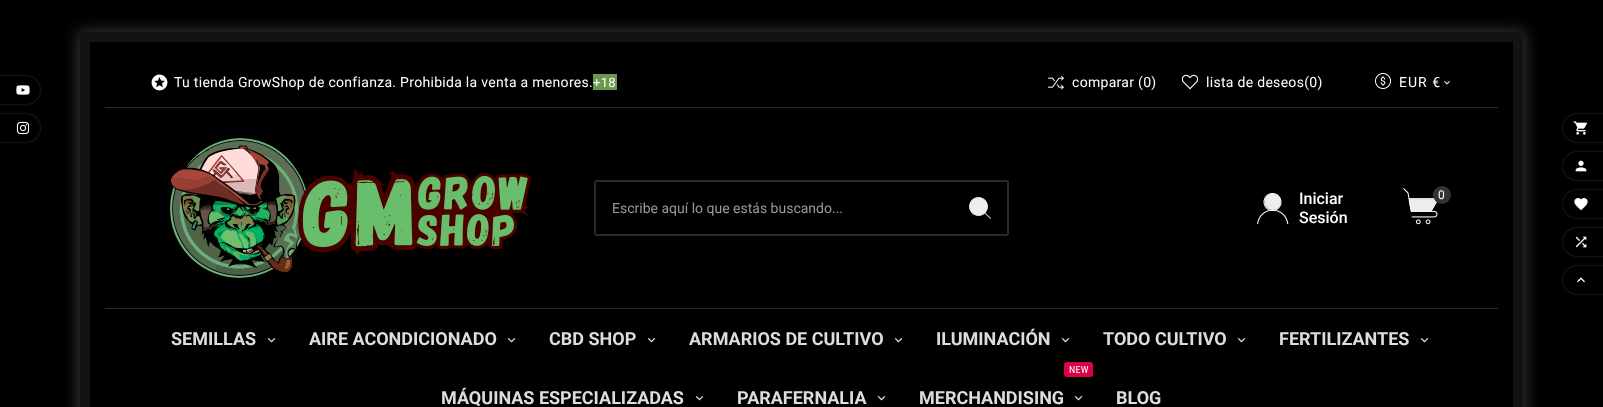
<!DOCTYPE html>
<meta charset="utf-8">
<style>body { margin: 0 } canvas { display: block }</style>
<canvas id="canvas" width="1603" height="407"></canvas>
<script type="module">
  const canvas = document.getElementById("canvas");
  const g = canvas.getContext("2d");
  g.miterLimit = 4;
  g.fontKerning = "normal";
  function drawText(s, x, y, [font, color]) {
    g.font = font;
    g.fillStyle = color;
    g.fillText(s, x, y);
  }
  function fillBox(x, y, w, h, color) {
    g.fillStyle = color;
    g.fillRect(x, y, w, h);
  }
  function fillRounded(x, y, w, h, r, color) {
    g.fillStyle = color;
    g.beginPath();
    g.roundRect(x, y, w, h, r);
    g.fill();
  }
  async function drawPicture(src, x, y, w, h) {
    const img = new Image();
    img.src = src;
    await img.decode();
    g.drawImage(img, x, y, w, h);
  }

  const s1 = ["14px Roboto", "#FFFFFF"];
  const s2 = ["13px Roboto", "#FFFFFF"];
  const s3 = ["14px Roboto", "#999999"];
  const s4 = ["500 16px Roboto", "#FFFFFF"];
  const s5 = ["12px Roboto", "#FFFFFF"];
  const s6 = ["bold 18px Roboto", "#DDDDDD"];
  const s7 = ["10px Roboto Condensed", "#FFFFFF"];

  fillBox(0, 0, 1603, 407, "#000000");
  g.save();
  g.beginPath();
  g.moveTo(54, 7);
  g.lineTo(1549, 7);
  g.lineTo(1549, 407);
  g.lineTo(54, 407);
  g.closePath();
  g.moveTo(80, 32);
  g.lineTo(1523, 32);
  g.lineTo(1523, 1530);
  g.lineTo(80, 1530);
  g.closePath();
  g.clip("evenodd");
  g.fillStyle = "rgba(204, 204, 204, 0.27)";
  g.filter = "blur(7.5px)";
  g.beginPath();
  g.rect(78, 31, 1447, 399);
  g.fill();
  g.filter = "none";
  g.restore();
  g.strokeStyle = "#131313";
  g.lineWidth = 10;
  g.strokeRect(85, 37, 1433, 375);
  g.fillStyle = "rgba(255, 255, 255, 0.2)";
  g.filter = "blur(1px)";
  g.beginPath();
  g.roundRect(-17, 76, 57, 28, 14);
  g.fill();
  g.filter = "none";
  g.fillStyle = "#000000";
  g.beginPath();
  g.moveTo(-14, 76);
  g.lineTo(26, 76);
  g.bezierCurveTo(33.5, 76, 40, 82.5, 40, 90);
  g.bezierCurveTo(40, 97.5, 33.5, 104, 26, 104);
  g.lineTo(-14, 104);
  g.closePath();
  g.fill();
  await drawPicture("pic1.png", 16, 85, 14, 10);
  g.fillStyle = "rgba(255, 255, 255, 0.2)";
  g.filter = "blur(1px)";
  g.beginPath();
  g.roundRect(-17, 114, 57, 28, 14);
  g.fill();
  g.filter = "none";
  g.fillStyle = "#000000";
  g.beginPath();
  g.moveTo(-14, 114);
  g.lineTo(26, 114);
  g.bezierCurveTo(33.5, 114, 40, 120.5, 40, 128);
  g.bezierCurveTo(40, 135.5, 33.5, 142, 26, 142);
  g.lineTo(-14, 142);
  g.closePath();
  g.fill();
  await drawPicture("pic2.png", 16, 121, 14, 14);
  g.fillStyle = "rgba(255, 255, 255, 0.2)";
  g.filter = "blur(1px)";
  g.beginPath();
  g.roundRect(1563, 114, 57, 28, 14);
  g.fill();
  g.filter = "none";
  g.fillStyle = "#000000";
  g.beginPath();
  g.moveTo(1577, 114);
  g.lineTo(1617, 114);
  g.lineTo(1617, 142);
  g.lineTo(1577, 142);
  g.bezierCurveTo(1569.5, 142, 1563, 135.5, 1563, 128);
  g.bezierCurveTo(1563, 120.5, 1569.5, 114, 1577, 114);
  g.closePath();
  g.fill();
  await drawPicture("pic3.png", 1573, 121, 14, 14);
  g.fillStyle = "rgba(255, 255, 255, 0.2)";
  g.filter = "blur(1px)";
  g.beginPath();
  g.roundRect(1563, 152, 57, 28, 14);
  g.fill();
  g.filter = "none";
  g.fillStyle = "#000000";
  g.beginPath();
  g.moveTo(1577, 152);
  g.lineTo(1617, 152);
  g.lineTo(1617, 180);
  g.lineTo(1577, 180);
  g.bezierCurveTo(1569.5, 180, 1563, 173.5, 1563, 166);
  g.bezierCurveTo(1563, 158.5, 1569.5, 152, 1577, 152);
  g.closePath();
  g.fill();
  await drawPicture("pic4.png", 1575, 160, 12, 12);
  g.fillStyle = "rgba(255, 255, 255, 0.2)";
  g.filter = "blur(1px)";
  g.beginPath();
  g.roundRect(1563, 190, 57, 28, 14);
  g.fill();
  g.filter = "none";
  g.fillStyle = "#000000";
  g.beginPath();
  g.moveTo(1577, 190);
  g.lineTo(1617, 190);
  g.lineTo(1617, 218);
  g.lineTo(1577, 218);
  g.bezierCurveTo(1569.5, 218, 1563, 211.5, 1563, 204);
  g.bezierCurveTo(1563, 196.5, 1569.5, 190, 1577, 190);
  g.closePath();
  g.fill();
  await drawPicture("pic5.png", 1574, 198, 14, 13);
  g.fillStyle = "rgba(255, 255, 255, 0.2)";
  g.filter = "blur(1px)";
  g.beginPath();
  g.roundRect(1563, 228, 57, 28, 14);
  g.fill();
  g.filter = "none";
  g.fillStyle = "#000000";
  g.beginPath();
  g.moveTo(1577, 228);
  g.lineTo(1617, 228);
  g.lineTo(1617, 256);
  g.lineTo(1577, 256);
  g.bezierCurveTo(1569.5, 256, 1563, 249.5, 1563, 242);
  g.bezierCurveTo(1563, 234.5, 1569.5, 228, 1577, 228);
  g.closePath();
  g.fill();
  await drawPicture("pic6.png", 1575, 236, 12, 12);
  g.fillStyle = "rgba(255, 255, 255, 0.2)";
  g.filter = "blur(1px)";
  g.beginPath();
  g.roundRect(1563, 266, 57, 28, 14);
  g.fill();
  g.filter = "none";
  g.fillStyle = "#000000";
  g.beginPath();
  g.moveTo(1577, 266);
  g.lineTo(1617, 266);
  g.lineTo(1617, 294);
  g.lineTo(1577, 294);
  g.bezierCurveTo(1569.5, 294, 1563, 287.5, 1563, 280);
  g.bezierCurveTo(1563, 272.5, 1569.5, 266, 1577, 266);
  g.closePath();
  g.fill();
  await drawPicture("pic7.png", 1577, 277, 8, 6);
  fillBox(105, 107, 1393, 1, "#292929");
  await drawPicture("pic8.png", 151, 74, 17, 17);
  g.letterSpacing = "0.3px";
  drawText("Tu tienda GrowShop de confianza. Prohibida la venta a menores.", 174, 87, s1);
  fillBox(593, 74, 24, 16, "#6A994E");
  drawText("+18", 593, 87, s2);
  await drawPicture("pic9.png", 1048, 75, 16, 15);
  drawText("comparar (0)", 1072, 87, s1);
  await drawPicture("pic10.png", 1182, 74, 16, 16);
  drawText("lista de deseos(0)", 1206, 87, s1);
  await drawPicture("pic11.png", 1375, 73, 16, 16);
  g.letterSpacing = "1px";
  drawText("EUR €", 1399, 87, s1);
  await drawPicture("pic12.png", 1444, 81, 6, 4);
  await drawPicture("pic13.png", 169, 138, 362, 140);
  g.beginPath();
  g.roundRect(595, 181, 413, 54, 2);
  g.strokeStyle = "#292929";
  g.lineWidth = 2;
  g.stroke();
  g.fillStyle = "#000000";
  g.beginPath();
  g.roundRect(596, 182, 357, 52, [1, 0, 0, 1]);
  g.fill();
  g.letterSpacing = "0px";
  drawText("Escribe aquí lo que estás buscando...", 612, 213, s3);
  g.fillStyle = "#000000";
  g.beginPath();
  g.roundRect(953, 182, 54, 52, [0, 1, 1, 0]);
  g.fill();
  await drawPicture("pic14.png", 969, 197, 22, 22);
  await drawPicture("pic15.png", 1257, 193, 32, 31);
  drawText("Iniciar", 1299, 204, s4);
  drawText("Sesión", 1299, 223, s4);
  await drawPicture("pic16.png", 1403, 188, 35, 37);
  g.fillStyle = "#333333";
  g.beginPath();
  g.arc(1442, 195, 9, 0, Math.PI * 2);
  g.fill();
  g.letterSpacing = "0.3px";
  drawText("0", 1438, 199, s5);
  fillBox(105, 308, 1393, 1, "#292929");
  g.letterSpacing = "0px";
  drawText("SEMILLAS", 171, 345, s6);
  await drawPicture("pic17.png", 267, 338, 9, 5);
  drawText("AIRE ACONDICIONADO", 309, 345, s6);
  await drawPicture("pic17.png", 507, 338, 9, 5);
  drawText("CBD SHOP", 549, 345, s6);
  await drawPicture("pic17.png", 647, 338, 9, 5);
  drawText("ARMARIOS DE CULTIVO", 689, 345, s6);
  await drawPicture("pic17.png", 894, 338, 9, 5);
  drawText("ILUMINACIÓN", 936, 345, s6);
  await drawPicture("pic17.png", 1061, 338, 9, 5);
  drawText("TODO CULTIVO", 1103, 345, s6);
  await drawPicture("pic17.png", 1237, 338, 9, 5);
  drawText("FERTILIZANTES", 1279, 345, s6);
  await drawPicture("pic17.png", 1420, 338, 9, 5);
  drawText("MÁQUINAS ESPECIALIZADAS", 441, 404, s6);
  await drawPicture("pic17.png", 695, 396, 9, 5);
  drawText("PARAFERNALIA", 737, 404, s6);
  await drawPicture("pic17.png", 877, 396, 9, 5);
  fillRounded(1064, 362, 29, 15, 3, "#D90244");
  g.letterSpacing = "0.3px";
  drawText("NEW", 1069, 373, s7);
  g.letterSpacing = "0px";
  drawText("MERCHANDISING", 919, 404, s6);
  await drawPicture("pic17.png", 1074, 396, 9, 5);
  drawText("BLOG", 1116, 404, s6);
</script>
